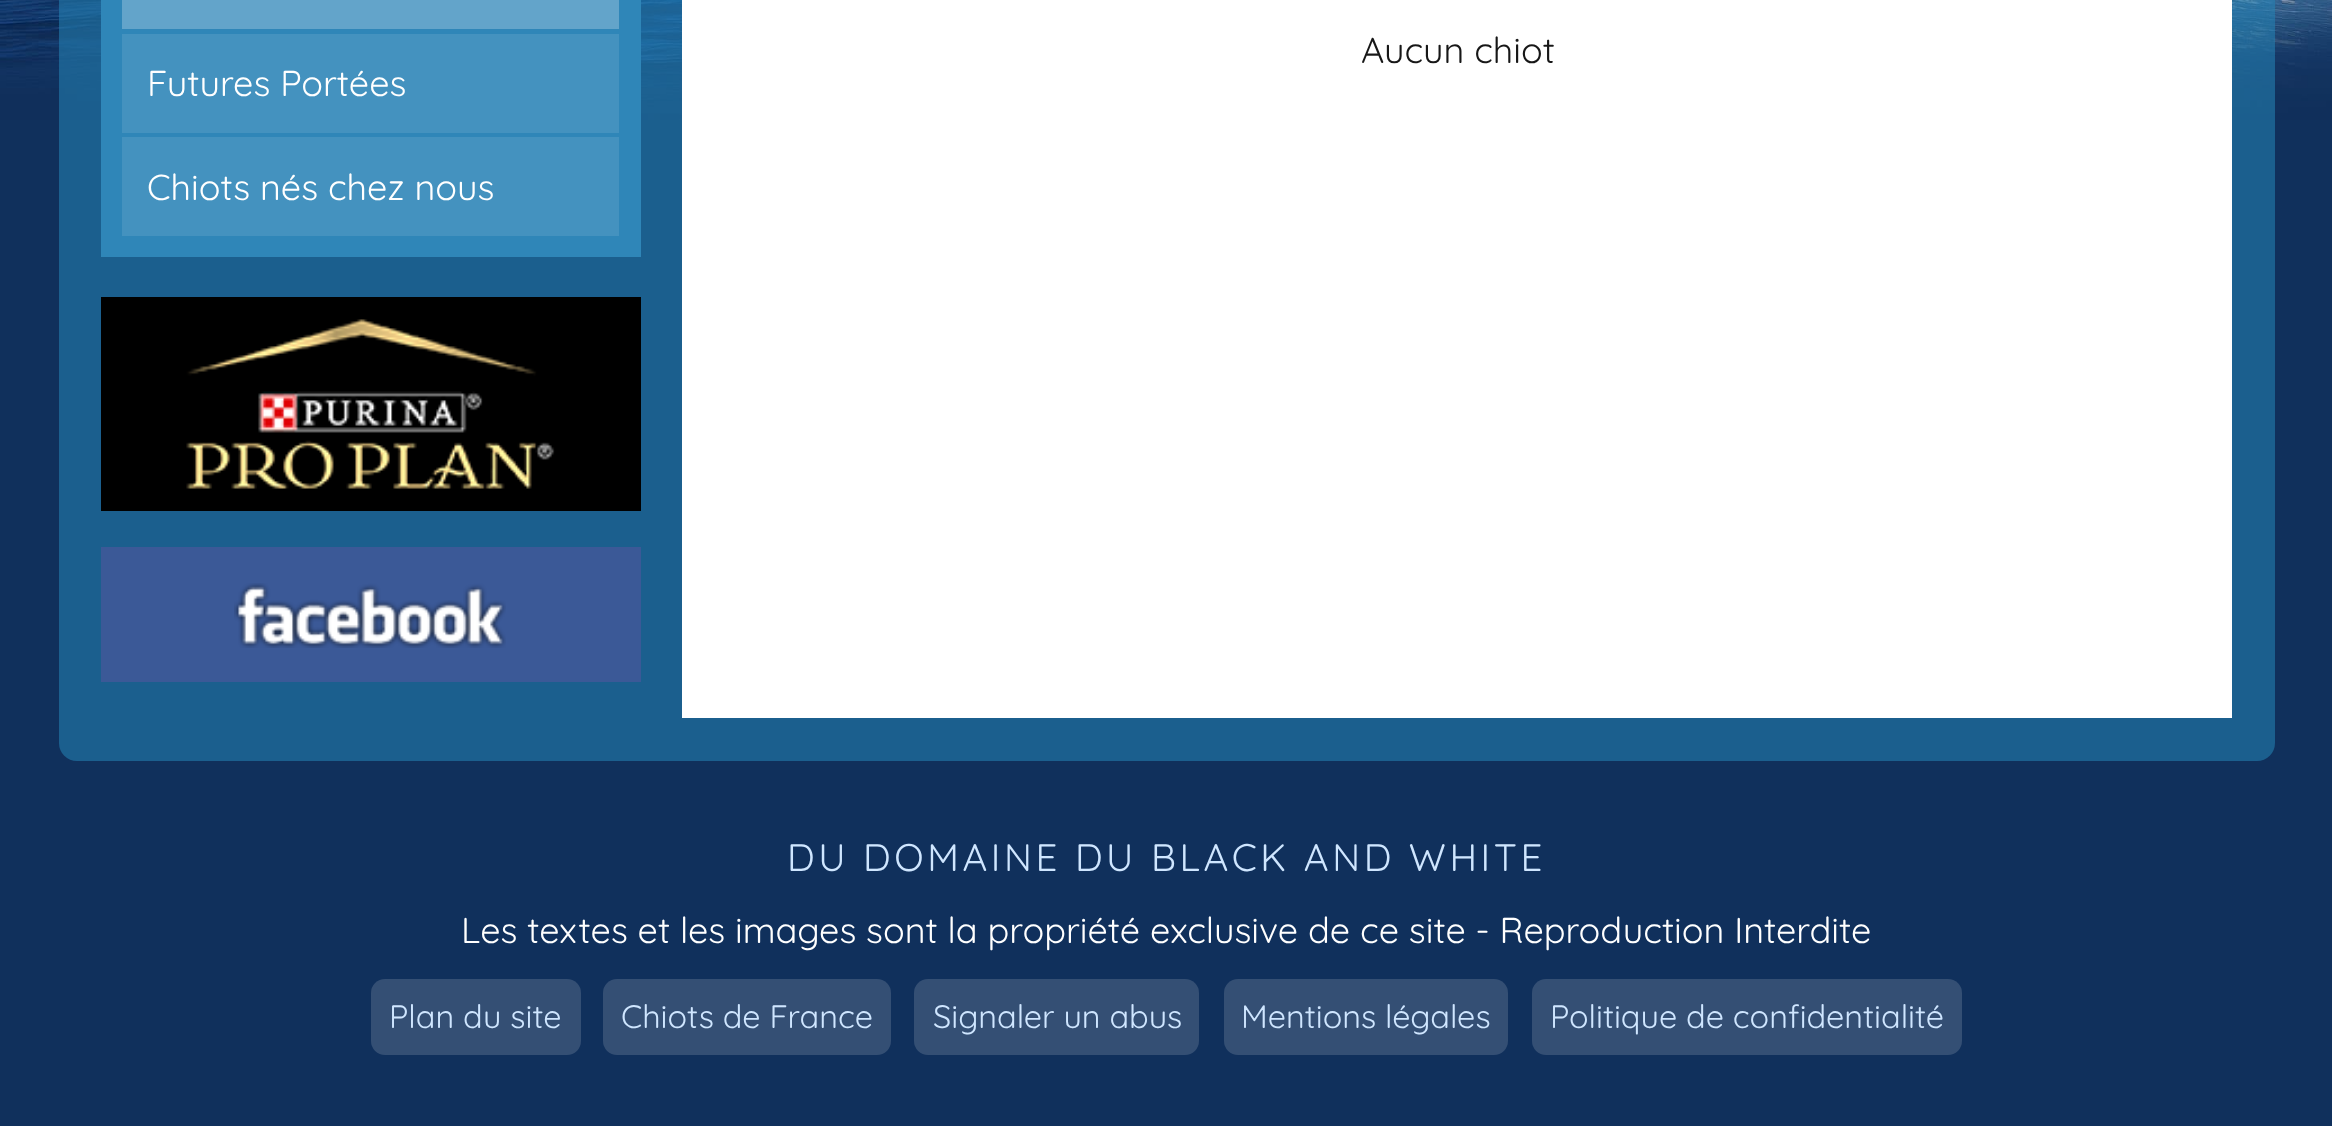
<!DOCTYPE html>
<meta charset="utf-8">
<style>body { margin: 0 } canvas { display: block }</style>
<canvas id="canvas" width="2332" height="1126"></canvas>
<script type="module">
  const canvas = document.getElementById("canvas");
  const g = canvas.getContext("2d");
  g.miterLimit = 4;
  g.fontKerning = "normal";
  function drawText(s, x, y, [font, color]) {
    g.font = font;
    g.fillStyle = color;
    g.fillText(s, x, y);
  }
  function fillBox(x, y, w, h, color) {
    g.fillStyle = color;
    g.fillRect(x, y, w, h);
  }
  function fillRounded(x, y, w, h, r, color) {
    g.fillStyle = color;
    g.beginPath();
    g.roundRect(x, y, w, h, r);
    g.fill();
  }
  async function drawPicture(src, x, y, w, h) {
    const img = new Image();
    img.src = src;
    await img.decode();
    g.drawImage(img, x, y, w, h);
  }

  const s1 = ["36px Quicksand", "#171717"];
  const s2 = ["36px Quicksand", "#FFFFFF"];
  const s3 = ["38.3px Quicksand", "#CFE6FF"];
  const s4 = ["32.4px Quicksand", "#CFE6FF"];

  fillBox(0, 0, 2332, 1126, "#10305C");
  await drawPicture("pic1.png", 0, 0, 2332, 120);
  fillRounded(59, -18, 2216, 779, 18, "rgba(37, 130, 180, 0.58)");
  fillBox(682, 0, 1550, 718, "#FFFFFF");
  drawText("Aucun chiot", 1361, 63, s1);
  fillBox(101, 0, 540, 257, "#2F86B8");
  fillBox(122, 0, 497, 29, "#63A4CA");
  fillBox(122, 34, 497, 99, "#4492BF");
  drawText("Futures Portées", 147, 96, s2);
  fillBox(122, 137, 497, 99, "#4492BF");
  drawText("Chiots nés chez nous", 147, 200, s2);
  fillBox(101, 297, 540, 214, "#000000");
  await drawPicture("pic2.png", 186, 319, 369, 170);
  fillBox(101, 547, 540, 135, "#3B5997");
  await drawPicture("pic3.png", 234, 583, 272, 65);
  g.letterSpacing = "3.6px";
  drawText("DU DOMAINE DU BLACK AND WHITE", 787, 871, s3);
  g.letterSpacing = "0px";
  drawText("Les textes et les images sont la propriété exclusive de ce site - Reproduction Interdite", 461, 943, s2);
  fillRounded(371, 979, 210, 76, 14, "#344F74");
  drawText("Plan du site", 389, 1028, s4);
  fillRounded(603, 979, 288, 76, 14, "#344F74");
  drawText("Chiots de France", 621, 1028, s4);
  fillRounded(914, 979, 285, 76, 14, "#344F74");
  drawText("Signaler un abus", 933, 1028, s4);
  fillRounded(1224, 979, 284, 76, 14, "#344F74");
  drawText("Mentions légales", 1241, 1028, s4);
  fillRounded(1532, 979, 430, 76, 14, "#344F74");
  drawText("Politique de confidentialité", 1550, 1028, s4);
</script>
